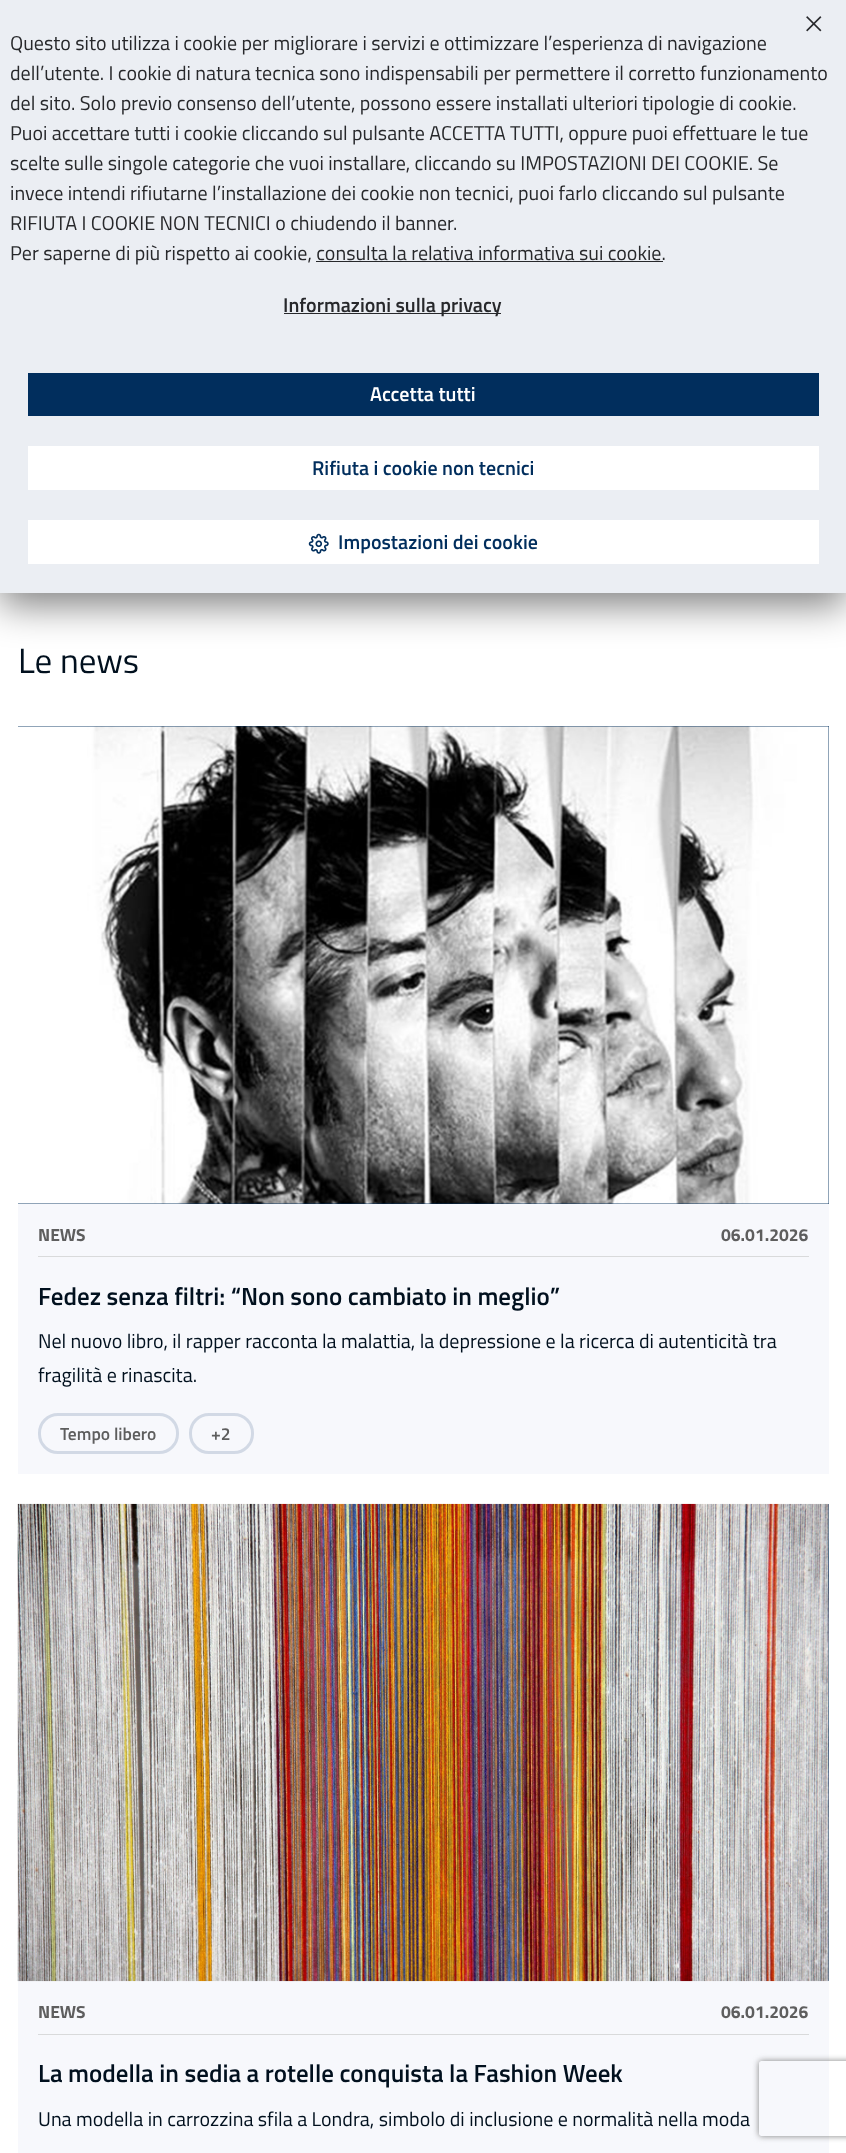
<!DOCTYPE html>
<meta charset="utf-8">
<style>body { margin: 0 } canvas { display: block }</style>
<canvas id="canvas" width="846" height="2153"></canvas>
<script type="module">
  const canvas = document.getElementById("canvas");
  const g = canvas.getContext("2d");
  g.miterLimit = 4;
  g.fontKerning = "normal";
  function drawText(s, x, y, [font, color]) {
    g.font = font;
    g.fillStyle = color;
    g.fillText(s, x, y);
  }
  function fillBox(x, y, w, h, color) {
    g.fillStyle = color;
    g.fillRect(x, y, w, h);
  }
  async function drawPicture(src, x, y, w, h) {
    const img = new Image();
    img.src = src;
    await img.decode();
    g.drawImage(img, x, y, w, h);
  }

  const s1 = ["20px Titillium Web", "#27282B"];
  const s2 = ["600 20px Titillium Web", "#27282B"];
  const s3 = ["600 20px Titillium Web", "#FFFFFF"];
  const s4 = ["600 20px Titillium Web", "#012E5D"];
  const s5 = ["35px Titillium Web", "#01101E"];
  const s6 = ["bold 17.5px Titillium Web", "#5E5E5E"];
  const s7 = ["600 25px Titillium Web", "#01101E"];
  const s8 = ["20px Titillium Web", "#01101E"];
  const s9 = ["600 17.5px Titillium Web", "#5E5E5E"];

  fillBox(0, 0, 846, 2153, "#FFFFFF");
  g.fillStyle = "rgba(0, 0, 0, 0.5)";
  g.filter = "blur(19px)";
  g.beginPath();
  g.rect(0, 13, 846, 592);
  g.fill();
  g.filter = "none";
  fillBox(0, 0, 846, 593, "#EBEEF3");
  await drawPicture("pic1.png", 806, 16, 16, 16);
  drawText("Questo sito utilizza i cookie per migliorare i servizi e ottimizzare l’esperienza di navigazione", 10, 50, s1);
  drawText("dell’utente. I cookie di natura tecnica sono indispensabili per permettere il corretto funzionamento", 10, 80, s1);
  drawText("del sito. Solo previo consenso dell’utente, possono essere installati ulteriori tipologie di cookie.", 10, 110, s1);
  drawText("Puoi accettare tutti i cookie cliccando sul pulsante ACCETTA TUTTI, oppure puoi effettuare le tue", 10, 140, s1);
  drawText("scelte sulle singole categorie che vuoi installare, cliccando su IMPOSTAZIONI DEI COOKIE. Se", 10, 170, s1);
  drawText("invece intendi rifiutarne l’installazione dei cookie non tecnici, puoi farlo cliccando sul pulsante", 10, 200, s1);
  drawText("RIFIUTA I COOKIE NON TECNICI o chiudendo il banner.", 10, 230, s1);
  drawText("Per saperne di più rispetto ai cookie, consulta la relativa informativa sui cookie.", 10, 260, s1);
  fillBox(316, 261, 347, 1, "#27282B");
  fillBox(284, 313, 217, 1, "#27282B");
  drawText("Informazioni sulla privacy", 283, 312, s2);
  fillBox(28, 373, 791, 43, "#012E5D");
  drawText("Accetta tutti", 370, 401, s3);
  fillBox(28, 446, 791, 44, "#FFFFFF");
  drawText("Rifiuta i cookie non tecnici", 312, 475, s4);
  fillBox(28, 520, 791, 44, "#FFFFFF");
  await drawPicture("pic2.png", 308, 533, 21, 21);
  drawText("Impostazioni dei cookie", 338, 549, s4);
  drawText("Le news", 18, 673, s5);
  fillBox(18, 1204, 811, 270, "#F7F8FC");
  fillBox(18, 726, 811, 478, "#012E5D");
  await drawPicture("pic3.png", 18, 726, 811, 478);
  fillBox(38, 1256, 771, 1, "#D9DADB");
  drawText("NEWS", 38, 1241, s6);
  drawText("06.01.2026", 721, 1241, s6);
  drawText("Fedez senza filtri: “Non sono cambiato in meglio”", 38, 1305, s7);
  drawText("Nel nuovo libro, il rapper racconta la malattia, la depressione e la ricerca di autenticità tra", 38, 1348, s8);
  drawText("fragilità e rinascita.", 38, 1382, s8);
  g.beginPath();
  g.roundRect(39.5, 1414.5, 138, 38, 18.5);
  g.strokeStyle = "#D2D9E5";
  g.lineWidth = 3;
  g.stroke();
  drawText("Tempo libero", 60, 1440, s9);
  g.beginPath();
  g.roundRect(190.5, 1414.5, 62, 38, 18.5);
  g.stroke();
  drawText("+2", 211, 1440, s9);
  fillBox(18, 1981, 811, 172, "#F7F8FC");
  fillBox(828, 1504, 1, 477, "#012E5D");
  await drawPicture("pic4.png", 17, 1503, 812, 479);
  fillBox(38, 2034, 771, 1, "#D9DADB");
  drawText("NEWS", 38, 2018, s6);
  drawText("06.01.2026", 721, 2018, s6);
  drawText("La modella in sedia a rotelle conquista la Fashion Week", 38, 2082, s7);
  g.save();
  g.beginPath();
  g.moveTo(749, 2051);
  g.lineTo(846, 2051);
  g.lineTo(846, 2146);
  g.lineTo(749, 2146);
  g.closePath();
  g.moveTo(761.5, 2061);
  g.lineTo(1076.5, 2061);
  g.bezierCurveTo(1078, 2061, 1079, 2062, 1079, 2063.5);
  g.lineTo(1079, 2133.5);
  g.bezierCurveTo(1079, 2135, 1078, 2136, 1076.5, 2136);
  g.lineTo(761.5, 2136);
  g.bezierCurveTo(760, 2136, 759, 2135, 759, 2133.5);
  g.lineTo(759, 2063.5);
  g.bezierCurveTo(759, 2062, 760, 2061, 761.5, 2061);
  g.closePath();
  g.clip("evenodd");
  g.fillStyle = "#808080";
  g.filter = "blur(3px)";
  g.beginPath();
  g.roundRect(759, 2061, 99, 75, 2.5);
  g.fill();
  g.filter = "none";
  g.restore();
  drawText("Una modella in carrozzina sfila a Londra, simbolo di inclusione e normalità nella moda", 38, 2126, s8);
</script>
